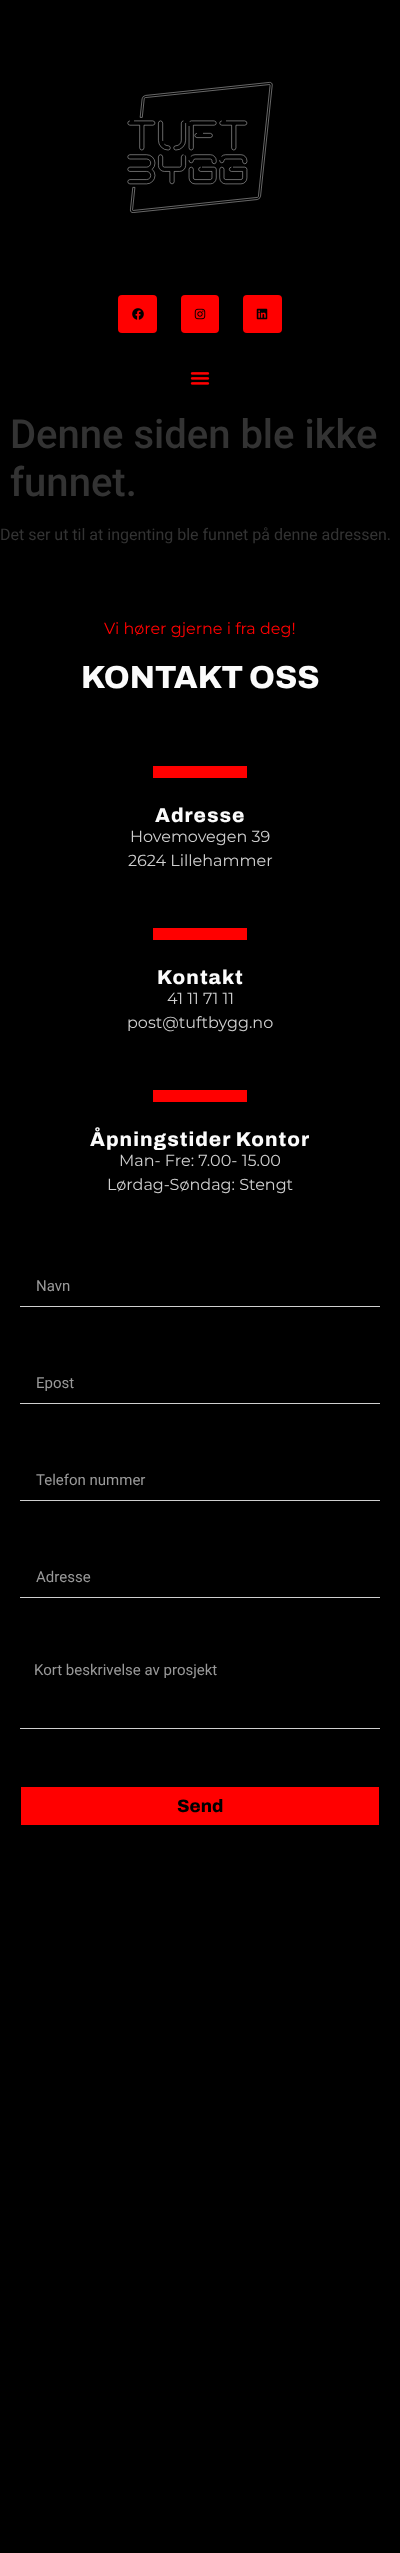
<!DOCTYPE html>
<meta charset="utf-8">
<style>body { margin: 0 } canvas { display: block }</style>
<canvas id="canvas" width="400" height="2553"></canvas>
<script type="module">
  const canvas = document.getElementById("canvas");
  const g = canvas.getContext("2d");
  g.miterLimit = 4;
  g.fontKerning = "normal";
  function drawText(s, x, y, [font, color]) {
    g.font = font;
    g.fillStyle = color;
    g.fillText(s, x, y);
  }
  function fillBox(x, y, w, h, color) {
    g.fillStyle = color;
    g.fillRect(x, y, w, h);
  }
  function fillRounded(x, y, w, h, r, color) {
    g.fillStyle = color;
    g.beginPath();
    g.roundRect(x, y, w, h, r);
    g.fill();
  }
  async function drawPicture(src, x, y, w, h) {
    const img = new Image();
    img.src = src;
    await img.decode();
    g.drawImage(img, x, y, w, h);
  }

  const s1 = ["500 40px Roboto", "#333333"];
  const s2 = ["16px Roboto", "#333333"];
  const s3 = ["16px Montserrat", "#FF0000"];
  const s4 = ["800 32px Archivo", "#FBFBFB"];
  const s5 = ["800 20px Archivo", "#FBFBFB"];
  const s6 = ["16px Montserrat", "#CFCFCF"];
  const s7 = ["15px Roboto", "#999999"];
  const s8 = ["800 18px Archivo", "#000000"];

  fillBox(0, 0, 400, 2553, "#000000");
  await drawPicture("pic1.png", 127, 81, 146, 132);
  fillRounded(118, 295, 39, 38, 4, "#FF0101");
  await drawPicture("pic2.png", 132, 308, 12, 12);
  fillRounded(181, 295, 38, 38, 4, "#FF0000");
  await drawPicture("pic3.png", 194, 308, 12, 12);
  fillRounded(243, 295, 39, 38, 4, "#FF0000");
  await drawPicture("pic4.png", 256, 308, 12, 12);
  await drawPicture("pic5.png", 190, 372, 20, 13);
  drawText("Denne siden ble ikke", 10, 448, s1);
  drawText("funnet.", 10, 496, s1);
  drawText("Det ser ut til at ingenting ble funnet på denne adressen.", 0, 540, s2);
  drawText("Vi hører gjerne i fra deg!", 104, 634, s3);
  drawText("KONTAKT OSS", 81, 688, s4);
  fillBox(153, 766, 94, 12, "#FF0000");
  g.letterSpacing = "1px";
  drawText("Adresse", 155, 822, s5);
  g.letterSpacing = "0px";
  drawText("Hovemovegen 39", 130, 842, s6);
  drawText("2624 Lillehammer", 128, 866, s6);
  fillBox(153, 928, 94, 12, "#FF0000");
  g.letterSpacing = "1px";
  drawText("Kontakt", 157, 984, s5);
  g.letterSpacing = "0px";
  drawText("41 11 71 11", 167, 1004, s6);
  drawText("post@tuftbygg.no", 127, 1028, s6);
  fillBox(153, 1090, 94, 12, "#FF0000");
  g.letterSpacing = "1px";
  drawText("Åpningstider Kontor", 90, 1146, s5);
  g.letterSpacing = "0px";
  drawText("Man- Fre: 7.00- 15.00", 119, 1166, s6);
  drawText("Lørdag-Søndag: Stengt", 107, 1190, s6);
  fillBox(20, 1306, 360, 1, "#CFCFCF");
  drawText("Navn", 36, 1291, s7);
  fillBox(20, 1403, 360, 1, "#CFCFCF");
  drawText("Epost", 36, 1388, s7);
  fillBox(20, 1500, 360, 1, "#CFCFCF");
  drawText("Telefon nummer", 36, 1485, s7);
  fillBox(20, 1597, 360, 1, "#CFCFCF");
  drawText("Adresse", 36, 1582, s7);
  fillBox(20, 1728, 360, 1, "#CFCFCF");
  drawText("Kort beskrivelse av prosjekt", 34, 1675, s7);
  fillBox(21, 1787, 358, 38, "#FF0000");
  drawText("Send", 177, 1812, s8);
</script>
